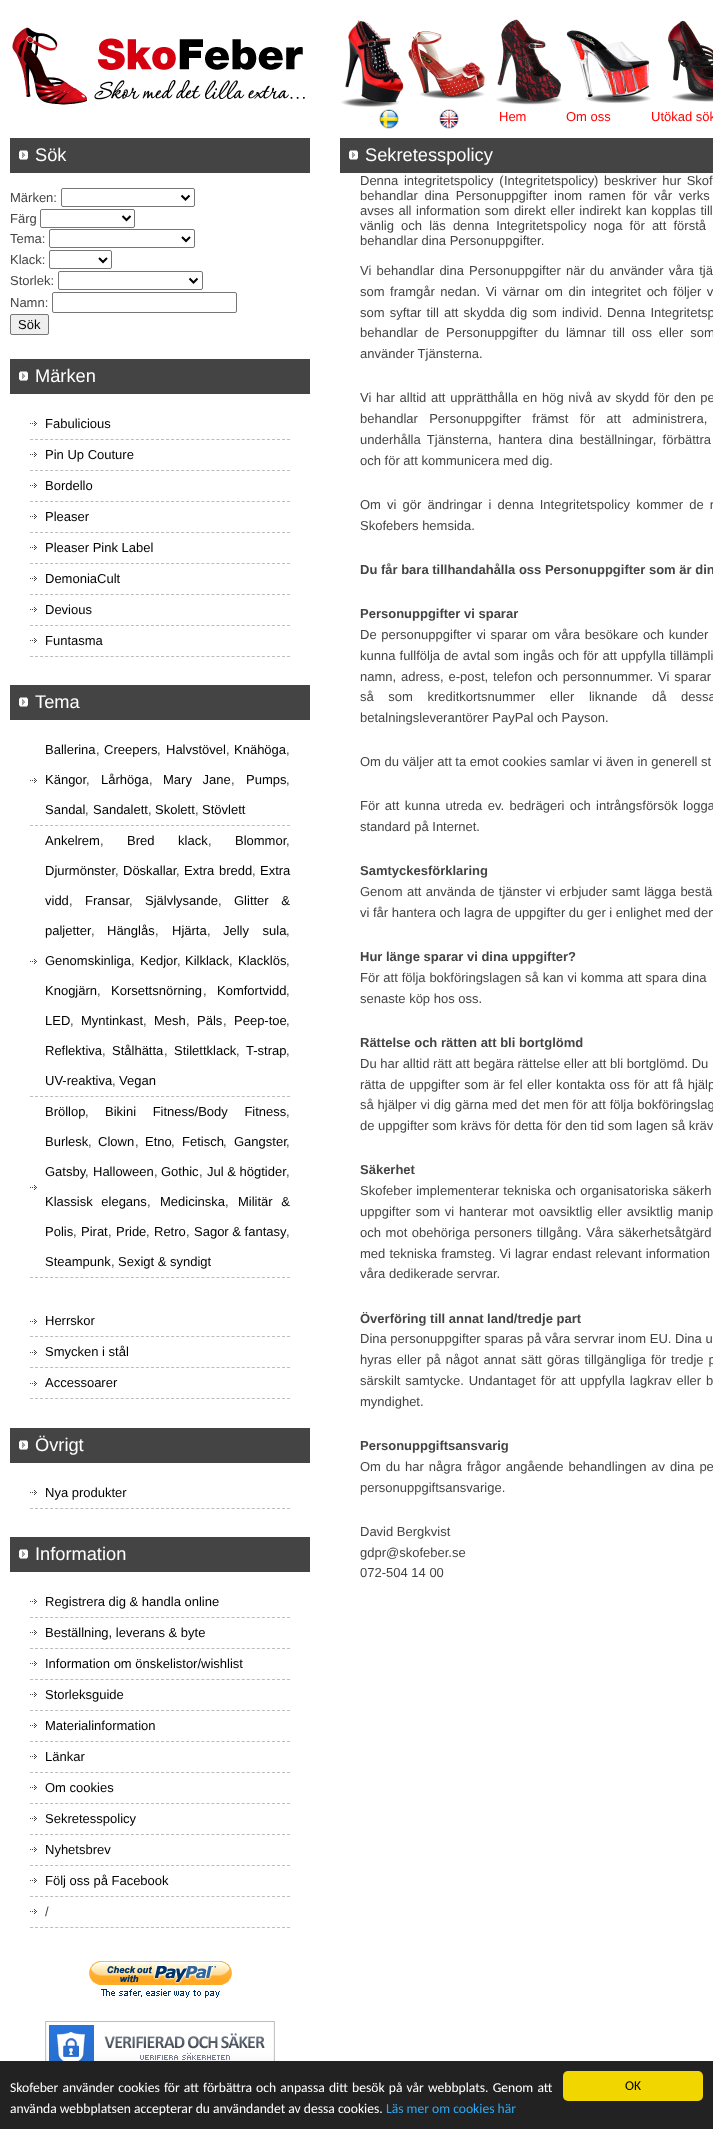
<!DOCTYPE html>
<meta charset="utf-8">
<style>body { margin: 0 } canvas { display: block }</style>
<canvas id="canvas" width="713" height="2129"></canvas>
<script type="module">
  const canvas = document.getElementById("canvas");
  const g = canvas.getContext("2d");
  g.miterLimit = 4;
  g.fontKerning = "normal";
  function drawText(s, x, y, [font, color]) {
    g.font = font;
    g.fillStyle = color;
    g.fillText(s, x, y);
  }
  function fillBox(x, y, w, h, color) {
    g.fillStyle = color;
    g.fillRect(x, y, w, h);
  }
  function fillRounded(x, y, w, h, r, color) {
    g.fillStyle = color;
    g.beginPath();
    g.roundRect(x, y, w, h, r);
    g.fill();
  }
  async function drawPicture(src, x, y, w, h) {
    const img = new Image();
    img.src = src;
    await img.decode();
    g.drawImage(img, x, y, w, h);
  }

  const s1 = ["13px Liberation Sans", "#FF0000"];
  const s2 = ["18.25px Liberation Sans", "#FFFFFF"];
  const s3 = ["13px Liberation Sans", "#444444"];
  const s4 = ["13px Liberation Sans", "#000000"];
  const s5 = ["bold 13px Liberation Sans", "#444444"];
  const s6 = ["13.6px Carlito", "#FFFFFF"];
  const s7 = ["13.6px Carlito", "#31A8F0"];
  const s8 = ["13.6px Carlito", "#000000"];

  fillBox(0, 0, 713, 2129, "#FFFFFF");
  await drawPicture("pic1.png", 10, 10, 703, 100);
  await drawPicture("pic2.png", 379, 109, 20, 20);
  await drawPicture("pic3.png", 439, 109, 20, 20);
  drawText("Hem", 499, 121, s1);
  drawText("Om oss", 566, 121, s1);
  drawText("Utökad sök", 651, 121, s1);
  fillBox(10, 138, 300, 35, "#444444");
  await drawPicture("pic4.png", 18, 144, 10, 16);
  drawText("Sök", 35, 161, s2);
  drawText("Märken:", 10, 202, s3);
  g.beginPath();
  g.roundRect(61.5, 188.5, 133, 18, 1.5);
  g.strokeStyle = "#767676";
  g.stroke();
  g.beginPath();
  g.moveTo(181.5, 195.5);
  g.lineTo(185.5, 199.5);
  g.lineTo(189.5, 195.5);
  g.strokeStyle = "#000000";
  g.lineWidth = 2;
  g.stroke();
  drawText("Färg", 10, 223, s3);
  g.beginPath();
  g.roundRect(40.5, 209.5, 94, 18, 1.5);
  g.strokeStyle = "#767676";
  g.lineWidth = 1;
  g.stroke();
  g.beginPath();
  g.moveTo(122.5, 216);
  g.lineTo(126.5, 220);
  g.lineTo(130.5, 216);
  g.strokeStyle = "#000000";
  g.lineWidth = 2;
  g.stroke();
  drawText("Tema:", 10, 243, s3);
  g.beginPath();
  g.roundRect(49.5, 229.5, 145, 18, 1.5);
  g.strokeStyle = "#767676";
  g.lineWidth = 1;
  g.stroke();
  g.beginPath();
  g.moveTo(182, 237);
  g.lineTo(186, 241);
  g.lineTo(190, 237);
  g.strokeStyle = "#000000";
  g.lineWidth = 2;
  g.stroke();
  drawText("Klack:", 10, 264, s3);
  g.beginPath();
  g.roundRect(49.5, 250.5, 62, 18, 1.5);
  g.strokeStyle = "#767676";
  g.lineWidth = 1;
  g.stroke();
  g.beginPath();
  g.moveTo(99, 258);
  g.lineTo(103, 262);
  g.lineTo(107, 258);
  g.strokeStyle = "#000000";
  g.lineWidth = 2;
  g.stroke();
  drawText("Storlek:", 10, 285, s3);
  g.beginPath();
  g.roundRect(58.5, 271.5, 144, 18, 1.5);
  g.strokeStyle = "#767676";
  g.lineWidth = 1;
  g.stroke();
  g.beginPath();
  g.moveTo(189.5, 278.5);
  g.lineTo(193.5, 282.5);
  g.lineTo(197.5, 278.5);
  g.strokeStyle = "#000000";
  g.lineWidth = 2;
  g.stroke();
  drawText("Namn:", 10, 307, s3);
  g.beginPath();
  g.roundRect(52.5, 292.5, 184, 20, 1.5);
  g.strokeStyle = "#767676";
  g.lineWidth = 1;
  g.stroke();
  g.fillStyle = "#EFEFEF";
  g.beginPath();
  g.roundRect(10.5, 314.5, 38, 20, 1.5);
  g.fill();
  g.stroke();
  drawText("Sök", 18, 329, s4);
  fillBox(10, 359, 300, 35, "#444444");
  await drawPicture("pic4.png", 18, 365, 10, 16);
  drawText("Märken", 35, 382, s2);
  await drawPicture("pic5.png", 30, 421, 7, 5);
  g.beginPath();
  g.moveTo(30, 439.5);
  g.lineTo(290, 439.5);
  g.strokeStyle = "#BDBDBD";
  g.setLineDash([3, 2.04]);
  g.stroke();
  drawText("Fabulicious", 45, 428, s4);
  await drawPicture("pic5.png", 30, 452, 7, 5);
  g.beginPath();
  g.moveTo(30, 470.5);
  g.lineTo(290, 470.5);
  g.stroke();
  drawText("Pin Up Couture", 45, 459, s4);
  await drawPicture("pic5.png", 30, 483, 7, 5);
  g.beginPath();
  g.moveTo(30, 501.5);
  g.lineTo(290, 501.5);
  g.stroke();
  drawText("Bordello", 45, 490, s4);
  await drawPicture("pic5.png", 30, 514, 7, 5);
  g.beginPath();
  g.moveTo(30, 532.5);
  g.lineTo(290, 532.5);
  g.stroke();
  drawText("Pleaser", 45, 521, s4);
  await drawPicture("pic5.png", 30, 545, 7, 5);
  g.beginPath();
  g.moveTo(30, 563.5);
  g.lineTo(290, 563.5);
  g.stroke();
  drawText("Pleaser Pink Label", 45, 552, s4);
  await drawPicture("pic5.png", 30, 576, 7, 5);
  g.beginPath();
  g.moveTo(30, 594.5);
  g.lineTo(290, 594.5);
  g.stroke();
  drawText("DemoniaCult", 45, 583, s4);
  await drawPicture("pic5.png", 30, 607, 7, 5);
  g.beginPath();
  g.moveTo(30, 625.5);
  g.lineTo(290, 625.5);
  g.stroke();
  drawText("Devious", 45, 614, s4);
  await drawPicture("pic5.png", 30, 638, 7, 5);
  g.beginPath();
  g.moveTo(30, 656.5);
  g.lineTo(290, 656.5);
  g.stroke();
  drawText("Funtasma", 45, 645, s4);
  fillBox(10, 685, 300, 35, "#444444");
  await drawPicture("pic4.png", 18, 691, 10, 16);
  drawText("Tema", 35, 708, s2);
  await drawPicture("pic5.png", 30, 778, 7, 5);
  g.beginPath();
  g.moveTo(30, 825.5);
  g.lineTo(290, 825.5);
  g.stroke();
  drawText("Ballerina", 45, 754, s4);
  drawText(",", 96, 754, s3);
  drawText("Creepers", 104, 754, s4);
  drawText(",", 157, 754, s3);
  drawText("Halvstövel", 166, 754, s4);
  drawText(",", 226, 754, s3);
  drawText("Knähöga", 234, 754, s4);
  drawText(",", 286, 754, s3);
  drawText("Kängor", 45, 784, s4);
  drawText(",", 86, 784, s3);
  drawText("Lårhöga", 101, 784, s4);
  drawText(",", 149, 784, s3);
  g.wordSpacing = "7px";
  drawText("Mary Jane", 163, 784, s4);
  g.wordSpacing = "0px";
  drawText(",", 231, 784, s3);
  drawText("Pumps", 246, 784, s4);
  drawText(",", 286, 784, s3);
  drawText("Sandal", 45, 814, s4);
  drawText(",", 85, 814, s3);
  drawText("Sandalett", 93, 814, s4);
  drawText(",", 148, 814, s3);
  drawText("Skolett", 155, 814, s4);
  drawText(",", 195, 814, s3);
  drawText("Stövlett", 202, 814, s4);
  await drawPicture("pic5.png", 30, 959, 7, 5);
  g.beginPath();
  g.moveTo(30, 1096.5);
  g.lineTo(290, 1096.5);
  g.stroke();
  drawText("Ankelrem", 45, 845, s4);
  drawText(",", 100, 845, s3);
  g.wordSpacing = "20px";
  drawText("Bred klack", 127, 845, s4);
  g.wordSpacing = "0px";
  drawText(",", 208, 845, s3);
  drawText("Blommor", 235, 845, s4);
  drawText(",", 286, 845, s3);
  drawText("Djurmönster", 45, 875, s4);
  drawText(",", 115, 875, s3);
  drawText("Döskallar", 123, 875, s4);
  drawText(",", 176, 875, s3);
  g.wordSpacing = "1px";
  drawText("Extra bredd", 184, 875, s4);
  g.wordSpacing = "0px";
  drawText(",", 252, 875, s3);
  drawText("Extra", 260, 875, s4);
  drawText("vidd", 45, 905, s4);
  drawText(",", 69, 905, s3);
  drawText("Fransar", 85, 905, s4);
  drawText(",", 129, 905, s3);
  drawText("Självlysande", 145, 905, s4);
  drawText(",", 218, 905, s3);
  g.wordSpacing = "9px";
  drawText("Glitter &", 234, 905, s4);
  g.wordSpacing = "0px";
  drawText("paljetter", 45, 935, s4);
  drawText("Hänglås", 107, 935, s4);
  drawText("Hjärta", 172, 935, s4);
  g.wordSpacing = "10px";
  drawText("Jelly sula", 223, 935, s4);
  g.wordSpacing = "0px";
  drawText(",", 91, 935, s3);
  drawText(",", 155, 935, s3);
  drawText(",", 207, 935, s3);
  drawText(",", 286, 935, s3);
  drawText("Genomskinliga", 45, 965, s4);
  drawText(",", 131, 965, s3);
  drawText("Kedjor", 140, 965, s4);
  drawText("Kilklack", 185, 965, s4);
  drawText("Klacklös", 238, 965, s4);
  drawText(",", 177, 965, s3);
  drawText(",", 229, 965, s3);
  drawText(",", 286, 965, s3);
  drawText("Knogjärn", 45, 995, s4);
  drawText(",", 97, 995, s3);
  drawText("Korsettsnörning", 111, 995, s4);
  drawText(",", 203, 995, s3);
  drawText("Komfortvidd", 217, 995, s4);
  drawText(",", 286, 995, s3);
  drawText("LED", 45, 1025, s4);
  drawText(",", 70, 1025, s3);
  drawText("Myntinkast", 81, 1025, s4);
  drawText(",", 143, 1025, s3);
  drawText("Mesh", 154, 1025, s4);
  drawText(",", 186, 1025, s3);
  drawText("Päls", 197, 1025, s4);
  drawText(",", 223, 1025, s3);
  drawText("Peep-toe", 234, 1025, s4);
  drawText(",", 286, 1025, s3);
  drawText("Reflektiva", 45, 1055, s4);
  drawText(",", 102, 1055, s3);
  drawText("Stålhätta", 112, 1055, s4);
  drawText(",", 164, 1055, s3);
  drawText("Stilettklack", 174, 1055, s4);
  drawText(",", 236, 1055, s3);
  drawText("T-strap", 246, 1055, s4);
  drawText(",", 286, 1055, s3);
  drawText("UV-reaktiva", 45, 1085, s4);
  drawText(",", 112, 1085, s3);
  drawText("Vegan", 119, 1085, s4);
  await drawPicture("pic5.png", 30, 1185, 7, 5);
  g.beginPath();
  g.moveTo(30, 1277.5);
  g.lineTo(290, 1277.5);
  g.stroke();
  drawText("Bröllop", 45, 1116, s4);
  drawText(",", 85, 1116, s3);
  g.wordSpacing = "13px";
  drawText("Bikini Fitness/Body Fitness", 105, 1116, s4);
  g.wordSpacing = "0px";
  drawText(",", 286, 1116, s3);
  drawText("Burlesk", 45, 1146, s4);
  drawText(",", 88, 1146, s3);
  drawText("Clown", 98, 1146, s4);
  drawText(",", 135, 1146, s3);
  drawText("Etno", 145, 1146, s4);
  drawText(",", 171, 1146, s3);
  drawText("Fetisch", 182, 1146, s4);
  drawText(",", 223, 1146, s3);
  drawText("Gangster", 234, 1146, s4);
  drawText(",", 286, 1146, s3);
  drawText("Gatsby", 45, 1176, s4);
  drawText("Halloween", 93, 1176, s4);
  drawText("Gothic", 161, 1176, s4);
  drawText("Jul & högtider", 207, 1176, s4);
  drawText(",", 85, 1176, s3);
  drawText(",", 154, 1176, s3);
  drawText(",", 199, 1176, s3);
  drawText(",", 286, 1176, s3);
  g.wordSpacing = "5px";
  drawText("Klassisk elegans", 45, 1206, s4);
  g.wordSpacing = "0px";
  drawText(",", 147, 1206, s3);
  drawText("Medicinska", 160, 1206, s4);
  drawText(",", 225, 1206, s3);
  g.wordSpacing = "5px";
  drawText("Militär &", 238, 1206, s4);
  g.wordSpacing = "0px";
  drawText("Polis", 45, 1236, s4);
  drawText(",", 73, 1236, s3);
  drawText("Pirat", 81, 1236, s4);
  drawText(",", 108, 1236, s3);
  drawText("Pride", 116, 1236, s4);
  drawText(",", 146, 1236, s3);
  drawText("Retro", 154, 1236, s4);
  drawText(",", 186, 1236, s3);
  drawText("Sagor & fantasy", 194, 1236, s4);
  drawText(",", 286, 1236, s3);
  drawText("Steampunk", 45, 1266, s4);
  drawText(",", 111, 1266, s3);
  drawText("Sexigt & syndigt", 118, 1266, s4);
  await drawPicture("pic5.png", 30, 1319, 7, 5);
  g.beginPath();
  g.moveTo(30, 1336.5);
  g.lineTo(290, 1336.5);
  g.stroke();
  drawText("Herrskor", 45, 1325, s4);
  await drawPicture("pic5.png", 30, 1350, 7, 5);
  g.beginPath();
  g.moveTo(30, 1367.5);
  g.lineTo(290, 1367.5);
  g.stroke();
  drawText("Smycken i stål", 45, 1356, s4);
  await drawPicture("pic5.png", 30, 1381, 7, 5);
  g.beginPath();
  g.moveTo(30, 1398.5);
  g.lineTo(290, 1398.5);
  g.stroke();
  drawText("Accessoarer", 45, 1387, s4);
  fillBox(10, 1428, 300, 35, "#444444");
  await drawPicture("pic4.png", 18, 1434, 10, 16);
  drawText("Övrigt", 35, 1451, s2);
  await drawPicture("pic5.png", 30, 1490, 7, 5);
  g.beginPath();
  g.moveTo(30, 1508.5);
  g.lineTo(290, 1508.5);
  g.stroke();
  drawText("Nya produkter", 45, 1497, s4);
  fillBox(10, 1537, 300, 35, "#444444");
  await drawPicture("pic4.png", 18, 1543, 10, 16);
  drawText("Information", 35, 1560, s2);
  await drawPicture("pic5.png", 30, 1599, 7, 5);
  g.beginPath();
  g.moveTo(30, 1617.5);
  g.lineTo(290, 1617.5);
  g.stroke();
  drawText("Registrera dig & handla online", 45, 1606, s4);
  await drawPicture("pic5.png", 30, 1630, 7, 5);
  g.beginPath();
  g.moveTo(30, 1648.5);
  g.lineTo(290, 1648.5);
  g.stroke();
  drawText("Beställning, leverans & byte", 45, 1637, s4);
  await drawPicture("pic5.png", 30, 1661, 7, 5);
  g.beginPath();
  g.moveTo(30, 1679.5);
  g.lineTo(290, 1679.5);
  g.stroke();
  drawText("Information om önskelistor/wishlist", 45, 1668, s4);
  await drawPicture("pic5.png", 30, 1692, 7, 5);
  g.beginPath();
  g.moveTo(30, 1710.5);
  g.lineTo(290, 1710.5);
  g.stroke();
  drawText("Storleksguide", 45, 1699, s4);
  await drawPicture("pic5.png", 30, 1723, 7, 5);
  g.beginPath();
  g.moveTo(30, 1741.5);
  g.lineTo(290, 1741.5);
  g.stroke();
  drawText("Materialinformation", 45, 1730, s4);
  await drawPicture("pic5.png", 30, 1754, 7, 5);
  g.beginPath();
  g.moveTo(30, 1772.5);
  g.lineTo(290, 1772.5);
  g.stroke();
  drawText("Länkar", 45, 1761, s4);
  await drawPicture("pic5.png", 30, 1785, 7, 5);
  g.beginPath();
  g.moveTo(30, 1803.5);
  g.lineTo(290, 1803.5);
  g.stroke();
  drawText("Om cookies", 45, 1792, s4);
  await drawPicture("pic5.png", 30, 1816, 7, 5);
  g.beginPath();
  g.moveTo(30, 1834.5);
  g.lineTo(290, 1834.5);
  g.stroke();
  drawText("Sekretesspolicy", 45, 1823, s4);
  await drawPicture("pic5.png", 30, 1847, 7, 5);
  g.beginPath();
  g.moveTo(30, 1865.5);
  g.lineTo(290, 1865.5);
  g.stroke();
  drawText("Nyhetsbrev", 45, 1854, s4);
  await drawPicture("pic5.png", 30, 1878, 7, 5);
  g.beginPath();
  g.moveTo(30, 1896.5);
  g.lineTo(290, 1896.5);
  g.stroke();
  drawText("Följ oss på Facebook", 45, 1885, s4);
  await drawPicture("pic5.png", 30, 1909, 7, 5);
  g.beginPath();
  g.moveTo(30, 1927.5);
  g.lineTo(290, 1927.5);
  g.stroke();
  drawText("/", 45, 1916, s3);
  await drawPicture("pic6.png", 89, 1961, 143, 37);
  await drawPicture("pic7.png", 45, 2021, 230, 40);
  fillBox(340, 138, 373, 35, "#444444");
  await drawPicture("pic8.png", 348, 144, 10, 16);
  drawText("Sekretesspolicy", 365, 161, s2);
  g.wordSpacing = "2px";
  drawText("Denna integritetspolicy (", 360, 185, s3);
  g.wordSpacing = "0px";
  drawText("Integritetspolicy", 504, 185, s3);
  g.wordSpacing = "2px";
  drawText(") beskriver hur Skof", 594, 185, s3);
  g.wordSpacing = "3px";
  drawText("behandlar dina Personuppgifter inom ramen för vår verks", 360, 200, s3);
  g.wordSpacing = "0.9px";
  drawText("avses all information som direkt eller indirekt kan kopplas till", 360, 215, s3);
  g.wordSpacing = "3.5px";
  drawText("vänlig och läs denna Integritetspolicy noga för att förstå", 360, 230, s3);
  g.wordSpacing = "0px";
  drawText("behandlar dina Personuppgifter.", 360, 245, s3);
  g.wordSpacing = "1.5px";
  drawText("Vi behandlar dina Personuppgifter när du använder våra tjä", 360, 275, s3);
  g.wordSpacing = "1.9px";
  drawText("som framgår nedan. Vi värnar om din integritet och följer v", 360, 296, s3);
  g.wordSpacing = "1.5px";
  drawText("som syftar till att skydda dig som individ.", 360, 317, s3);
  drawText("Denna Integritetsp", 607, 317, s3);
  g.wordSpacing = "3.25px";
  drawText("behandlar de Personuppgifter du lämnar till oss eller som", 360, 337, s3);
  g.wordSpacing = "0px";
  drawText("använder Tjänsterna.", 360, 358, s3);
  g.wordSpacing = "1.1px";
  drawText("Vi har alltid att upprätthålla en hög nivå av skydd för den pe", 360, 402, s3);
  g.wordSpacing = "7.75px";
  drawText("behandlar Personuppgifter främst för att administrera,", 360, 423, s3);
  g.wordSpacing = "2.75px";
  drawText("underhålla Tjänsterna, hantera dina beställningar, förbättra", 360, 444, s3);
  g.wordSpacing = "0px";
  drawText("och för att kommunicera med dig.", 360, 465, s3);
  g.wordSpacing = "2.5px";
  drawText("Om vi gör ändringar i denna Integritetspolicy kommer de n", 360, 509, s3);
  g.wordSpacing = "0px";
  drawText("Skofebers hemsida.", 360, 530, s3);
  drawText("Du får bara tillhandahålla oss Personuppgifter som är din", 360, 574, s5);
  drawText("Personuppgifter vi sparar", 360, 618, s5);
  g.wordSpacing = "1.1px";
  drawText("De personuppgifter vi sparar om våra besökare och kunder", 360, 639, s3);
  g.wordSpacing = "0.5px";
  drawText("kunna fullfölja de avtal som ingås och för att uppfylla tillämpli", 360, 660, s3);
  g.wordSpacing = "1.25px";
  drawText("namn, adress, e-post, telefon och personnummer. Vi sparar", 360, 681, s3);
  g.wordSpacing = "11px";
  drawText("så som kreditkortsnummer eller liknande då dessa", 360, 701, s3);
  g.wordSpacing = "0px";
  drawText("betalningsleverantörer PayPal och Payson.", 360, 722, s3);
  drawText("Om du väljer att ta emot cookies samlar vi även in generell st", 360, 766, s3);
  g.wordSpacing = "1.75px";
  drawText("För att kunna utreda ev. bedrägeri och intrångsförsök logga", 360, 810, s3);
  g.wordSpacing = "0px";
  drawText("standard på Internet.", 360, 831, s3);
  drawText("Samtyckesförklaring", 360, 875, s5);
  g.wordSpacing = "0.75px";
  drawText("Genom att använda de tjänster vi erbjuder samt lägga bestä", 360, 896, s3);
  g.wordSpacing = "0px";
  drawText("vi får hantera och lagra de uppgifter du ger i enlighet med den", 360, 917, s3);
  drawText("Hur länge sparar vi dina uppgifter?", 360, 961, s5);
  g.wordSpacing = "0.25px";
  drawText("För att följa bokföringslagen så kan vi komma att spara dina", 360, 982, s3);
  g.wordSpacing = "0px";
  drawText("senaste köp hos oss.", 360, 1003, s3);
  drawText("Rättelse och rätten att bli bortglömd", 360, 1047, s5);
  drawText("Du har alltid rätt att begära rättelse eller att bli bortglömd. Du", 360, 1068, s3);
  g.wordSpacing = "0.75px";
  drawText("rätta de uppgifter som är fel eller kontakta oss för att få hjälp", 360, 1089, s3);
  g.wordSpacing = "0.25px";
  drawText("så hjälper vi dig gärna med det men för att följa bokföringslag", 360, 1109, s3);
  g.wordSpacing = "0px";
  drawText("de uppgifter som krävs för detta för den tid som lagen så kräv", 360, 1130, s3);
  drawText("Säkerhet", 360, 1174, s5);
  g.wordSpacing = "0.5px";
  drawText("Skofeber implementerar tekniska och organisatoriska säkerh", 360, 1195, s3);
  g.wordSpacing = "1.25px";
  drawText("uppgifter som vi hanterar mot oavsiktlig eller avsiktlig manip", 360, 1216, s3);
  g.wordSpacing = "1px";
  drawText("och mot obehöriga personers tillgång. Våra säkerhetsåtgärd", 360, 1237, s3);
  g.wordSpacing = "0.5px";
  drawText("med tekniska framsteg. Vi lagrar endast relevant information", 360, 1258, s3);
  g.wordSpacing = "0px";
  drawText("våra dedikerade servrar.", 360, 1278, s3);
  drawText("Överföring till annat land/tredje part", 360, 1323, s5);
  drawText("Dina personuppgifter sparas på våra servrar inom EU. Dina u", 360, 1343, s3);
  g.wordSpacing = "1.4px";
  drawText("hyras eller på något annat sätt göras tillgängliga för tredje p", 360, 1364, s3);
  g.wordSpacing = "1.25px";
  drawText("särskilt samtycke. Undantaget för att uppfylla lagkrav eller b", 360, 1385, s3);
  g.wordSpacing = "0px";
  drawText("myndighet.", 360, 1406, s3);
  drawText("Personuppgiftsansvarig", 360, 1450, s5);
  g.wordSpacing = "1.25px";
  drawText("Om du har några frågor angående behandlingen av dina pe", 360, 1471, s3);
  g.wordSpacing = "0px";
  drawText("personuppgiftsansvarige.", 360, 1492, s3);
  drawText("David Bergkvist", 360, 1536, s3);
  drawText("gdpr@skofeber.se", 360, 1557, s3);
  drawText("072-504 14 00", 360, 1577, s3);
  fillBox(0, 2061, 713, 68, "#222222");
  g.wordSpacing = "1.1px";
  drawText("Skofeber använder cookies för att förbättra och anpassa ditt besök på vår webbplats. Genom att", 10, 2092, s6);
  g.wordSpacing = "0px";
  drawText("använda webbplatsen accepterar du användandet av dessa cookies.", 10, 2113, s6);
  drawText("Läs mer om cookies här", 386, 2113, s7);
  fillRounded(563, 2071, 140, 30, 5, "#F1D600");
  drawText("OK", 625, 2090, s8);
</script>
